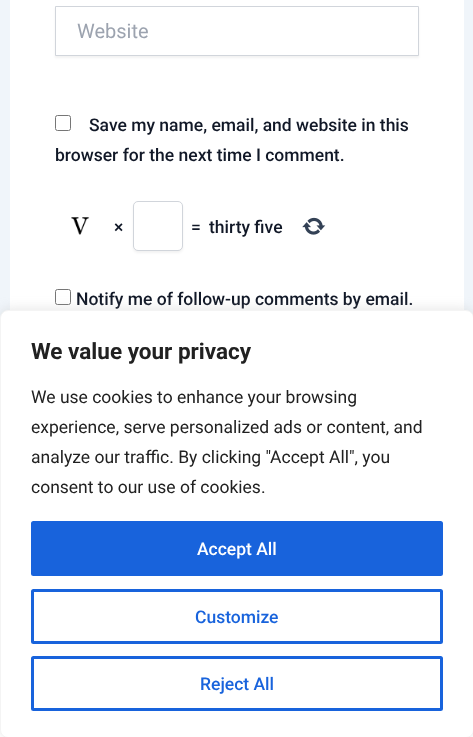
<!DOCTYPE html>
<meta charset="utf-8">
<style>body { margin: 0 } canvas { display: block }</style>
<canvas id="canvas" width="473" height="737"></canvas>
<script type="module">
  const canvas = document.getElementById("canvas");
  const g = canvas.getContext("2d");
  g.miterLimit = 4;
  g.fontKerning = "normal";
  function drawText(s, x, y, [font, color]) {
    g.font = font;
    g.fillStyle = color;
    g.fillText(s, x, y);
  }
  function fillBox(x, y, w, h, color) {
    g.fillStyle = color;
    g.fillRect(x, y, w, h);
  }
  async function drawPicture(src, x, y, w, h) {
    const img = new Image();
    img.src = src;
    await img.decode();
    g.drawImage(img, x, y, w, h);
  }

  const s1 = ["20px Roboto", "#9CA3AF"];
  const s2 = ["500 17.5px Roboto", "#111827"];
  const s3 = ["bold 22.5px Roboto", "#212121"];
  const s4 = ["17.5px Roboto", "#212121"];
  const s5 = ["500 17.5px Roboto", "#FFFFFF"];
  const s6 = ["500 17.5px Roboto", "#1863DC"];

  fillBox(0, 0, 473, 737, "#F0F5FA");
  fillBox(10, 0, 454, 310, "#FFFFFF");
  g.fillStyle = "rgba(0, 0, 0, 0.05)";
  g.filter = "blur(1px)";
  g.beginPath();
  g.rect(55, 8, 364, 50);
  g.fill();
  g.filter = "none";
  g.fillStyle = "#FFFFFF";
  g.beginPath();
  g.rect(55.5, 6.5, 363, 49);
  g.fill();
  g.strokeStyle = "#D1D5DB";
  g.stroke();
  drawText("Website", 77, 38, s1);
  g.beginPath();
  g.roundRect(55.5, 115.5, 15, 15, 2);
  g.strokeStyle = "#767676";
  g.stroke();
  drawText("Save my name, email, and website in this", 89, 131, s2);
  drawText("browser for the next time I comment.", 55, 161, s2);
  await drawPicture("pic1.png", 71, 217, 19, 18);
  drawText("×", 114, 233, s2);
  g.fillStyle = "rgba(0, 0, 0, 0.05)";
  g.filter = "blur(1px)";
  g.beginPath();
  g.roundRect(133, 203, 50, 50, 5);
  g.fill();
  g.filter = "none";
  g.fillStyle = "#FFFFFF";
  g.beginPath();
  g.roundRect(133.5, 201.5, 49, 49, 4.5);
  g.fill();
  g.strokeStyle = "#D1D5DB";
  g.stroke();
  drawText("=", 191, 233, s2);
  drawText("thirty five", 209, 233, s2);
  await drawPicture("pic2.png", 302, 217, 24, 18);
  g.beginPath();
  g.roundRect(55.5, 289.5, 15, 15, 2);
  g.strokeStyle = "#767676";
  g.stroke();
  drawText("Notify me of follow-up comments by email.", 76, 305, s2);
  fillBox(0, 730, 473, 7, "#FFFFFF");
  g.fillStyle = "rgba(172, 171, 171, 0.3)";
  g.filter = "blur(6px)";
  g.beginPath();
  g.roundRect(0, 309, 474, 427, 8);
  g.fill();
  g.filter = "none";
  g.fillStyle = "#FFFFFF";
  g.beginPath();
  g.roundRect(0.5, 310.5, 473, 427, 7.5);
  g.fill();
  g.strokeStyle = "#F4F4F4";
  g.stroke();
  drawText("We value your privacy", 31, 359, s3);
  drawText("We use cookies to enhance your browsing", 31, 403, s4);
  drawText("experience, serve personalized ads or content, and", 31, 433, s4);
  drawText("analyze our traffic. By clicking \"Accept All\", you", 31, 463, s4);
  drawText("consent to our use of cookies.", 31, 493, s4);
  g.fillStyle = "#1863DC";
  g.beginPath();
  g.roundRect(32.5, 522.5, 409, 52, 1);
  g.fill();
  g.strokeStyle = "#1863DC";
  g.lineWidth = 3;
  g.stroke();
  drawText("Accept All", 197, 555, s5);
  g.beginPath();
  g.roundRect(32.5, 590.5, 409, 52, 1);
  g.stroke();
  drawText("Customize", 195, 623, s6);
  g.beginPath();
  g.roundRect(32.5, 657.5, 409, 52, 1);
  g.stroke();
  drawText("Reject All", 200, 690, s6);
</script>
